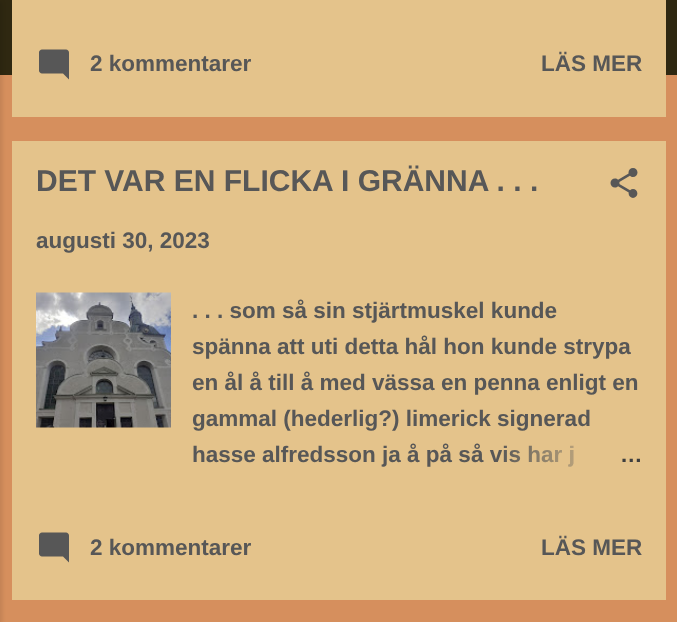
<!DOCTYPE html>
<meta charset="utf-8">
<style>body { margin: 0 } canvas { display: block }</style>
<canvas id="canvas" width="677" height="622"></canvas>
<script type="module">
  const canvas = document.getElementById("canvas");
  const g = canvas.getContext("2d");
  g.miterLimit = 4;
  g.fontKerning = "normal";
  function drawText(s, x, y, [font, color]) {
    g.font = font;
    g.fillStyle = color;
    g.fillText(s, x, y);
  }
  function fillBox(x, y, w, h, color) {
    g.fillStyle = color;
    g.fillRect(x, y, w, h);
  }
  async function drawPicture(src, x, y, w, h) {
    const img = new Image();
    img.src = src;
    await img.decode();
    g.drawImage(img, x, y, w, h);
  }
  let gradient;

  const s1 = ["bold 22.5px Liberation Sans", "#575757"];
  const s2 = ["bold 30px Liberation Sans", "#575757"];
  const s3 = ["bold 22.5px Liberation Sans", "#3E3E3E"];

  fillBox(0, 0, 677, 622, "#D68F5D");
  fillBox(0, 0, 677, 75, "#2F2811");
  g.fillStyle = "rgba(0, 0, 0, 0.1)";
  g.filter = "blur(2px)";
  g.beginPath();
  g.rect(-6, 2, 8, 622);
  g.fill();
  g.filter = "none";
  fillBox(12, 0, 654, 117, "#E4C38B");
  await drawPicture("pic1.png", 39, 49, 30, 31);
  drawText("2 kommentarer", 90, 71, s1);
  drawText("LÄS MER", 541, 71, s1);
  fillBox(12, 141, 654, 459, "#E4C38B");
  drawText("DET VAR EN FLICKA I GRÄNNA . . .", 36, 191, s2);
  await drawPicture("pic2.png", 610, 168, 28, 30);
  drawText("augusti 30, 2023", 36, 248, s1);
  await drawPicture("pic3.png", 36, 292, 135, 136);
  drawText(". . . som så sin stjärtmuskel kunde", 192, 318, s1);
  drawText("spänna att uti detta hål hon kunde strypa", 192, 354, s1);
  drawText("en ål å till å med vässa en penna enligt en", 192, 390, s1);
  drawText("gammal (hederlig?) limerick signerad", 192, 426, s1);
  drawText("hasse alfredsson ja å på så vis har j", 192, 462, s1);
  gradient = g.createLinearGradient(642, 455, 498, 455);
  gradient.addColorStop(0, "#E4C38B");
  gradient.addColorStop(0.2, "#E4C38B");
  gradient.addColorStop(1, "rgba(228, 195, 139, 0)");
  g.fillStyle = gradient;
  g.fillRect(500, 445, 73, 22);
  drawText("…", 620, 462, s3);
  await drawPicture("pic1.png", 39, 532, 30, 31);
  drawText("2 kommentarer", 90, 555, s1);
  drawText("LÄS MER", 541, 555, s1);
</script>
